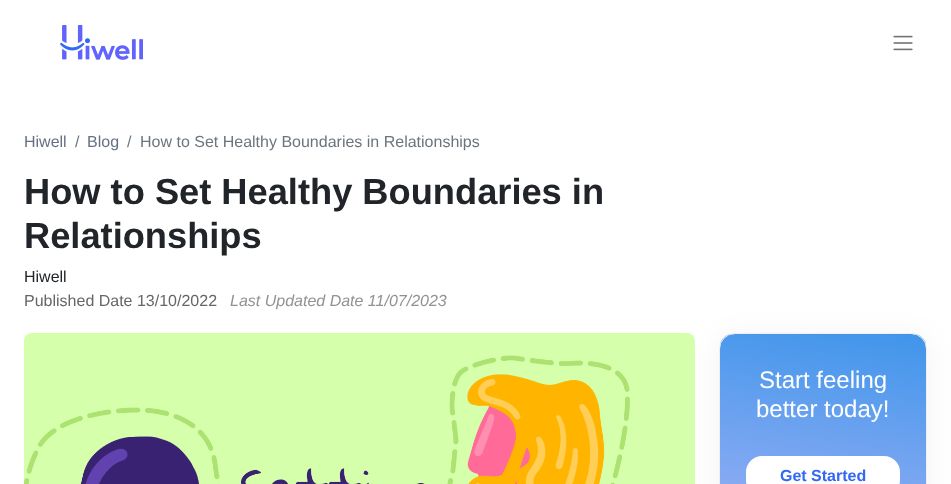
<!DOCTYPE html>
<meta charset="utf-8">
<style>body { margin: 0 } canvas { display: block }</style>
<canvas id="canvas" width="951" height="484"></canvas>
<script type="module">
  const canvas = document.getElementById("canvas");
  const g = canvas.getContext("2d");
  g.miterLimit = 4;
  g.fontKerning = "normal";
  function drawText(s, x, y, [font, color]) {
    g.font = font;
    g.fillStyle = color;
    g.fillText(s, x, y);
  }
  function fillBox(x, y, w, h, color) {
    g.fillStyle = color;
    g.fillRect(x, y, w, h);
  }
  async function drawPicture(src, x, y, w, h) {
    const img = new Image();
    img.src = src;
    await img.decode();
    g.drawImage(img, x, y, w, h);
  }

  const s1 = ["16px Liberation Sans", "#667085"];
  const s2 = ["16px Liberation Sans", "#6C757D"];
  const s3 = ["bold 36.25px Liberation Sans", "#212529"];
  const s4 = ["16px Liberation Sans", "#212529"];
  const s5 = ["16px Liberation Sans", "#646669"];
  const s6 = ["italic 16px Liberation Sans", "#909294"];
  const s7 = ["24px Liberation Sans", "#FFFFFF"];
  const s8 = ["bold 16px Liberation Sans", "#3268F3"];

  fillBox(0, 0, 951, 484, "#FFFFFF");
  await drawPicture("pic1.png", 60, 25, 83, 35);
  await drawPicture("pic2.png", 893, 35, 20, 16);
  drawText("Hiwell", 24, 147, s1);
  drawText("/", 75, 147, s2);
  drawText("Blog", 87, 147, s1);
  drawText("/", 127, 147, s2);
  drawText("How to Set Healthy Boundaries in Relationships", 140, 147, s2);
  drawText("How to Set Healthy Boundaries in", 24, 204, s3);
  drawText("Relationships", 24, 248, s3);
  drawText("Hiwell", 24, 282, s4);
  drawText("Published Date 13/10/2022", 24, 306, s5);
  drawText("Last Updated Date 11/07/2023", 230, 306, s6);
  await drawPicture("pic3.png", 24, 333, 671, 151);
  g.fillStyle = "rgba(0, 0, 0, 0.05)";
  g.filter = "blur(15px)";
  g.beginPath();
  g.roundRect(719, 337, 208, 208, 16);
  g.fill();
  g.filter = "none";
  await drawPicture("pic4.png", 720, 334, 206, 150);
  g.beginPath();
  g.roundRect(719.5, 333.5, 207, 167, 15.5);
  g.strokeStyle = "#EFEFEF";
  g.stroke();
  drawText("Start feeling", 759, 388, s7);
  drawText("better today!", 756, 417, s7);
  g.beginPath();
  g.roundRect(747, 457, 152, 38, 15);
  g.fill();
  g.strokeStyle = "#FFFFFF";
  g.lineWidth = 2;
  g.stroke();
  drawText("Get Started", 780, 481, s8);
</script>
